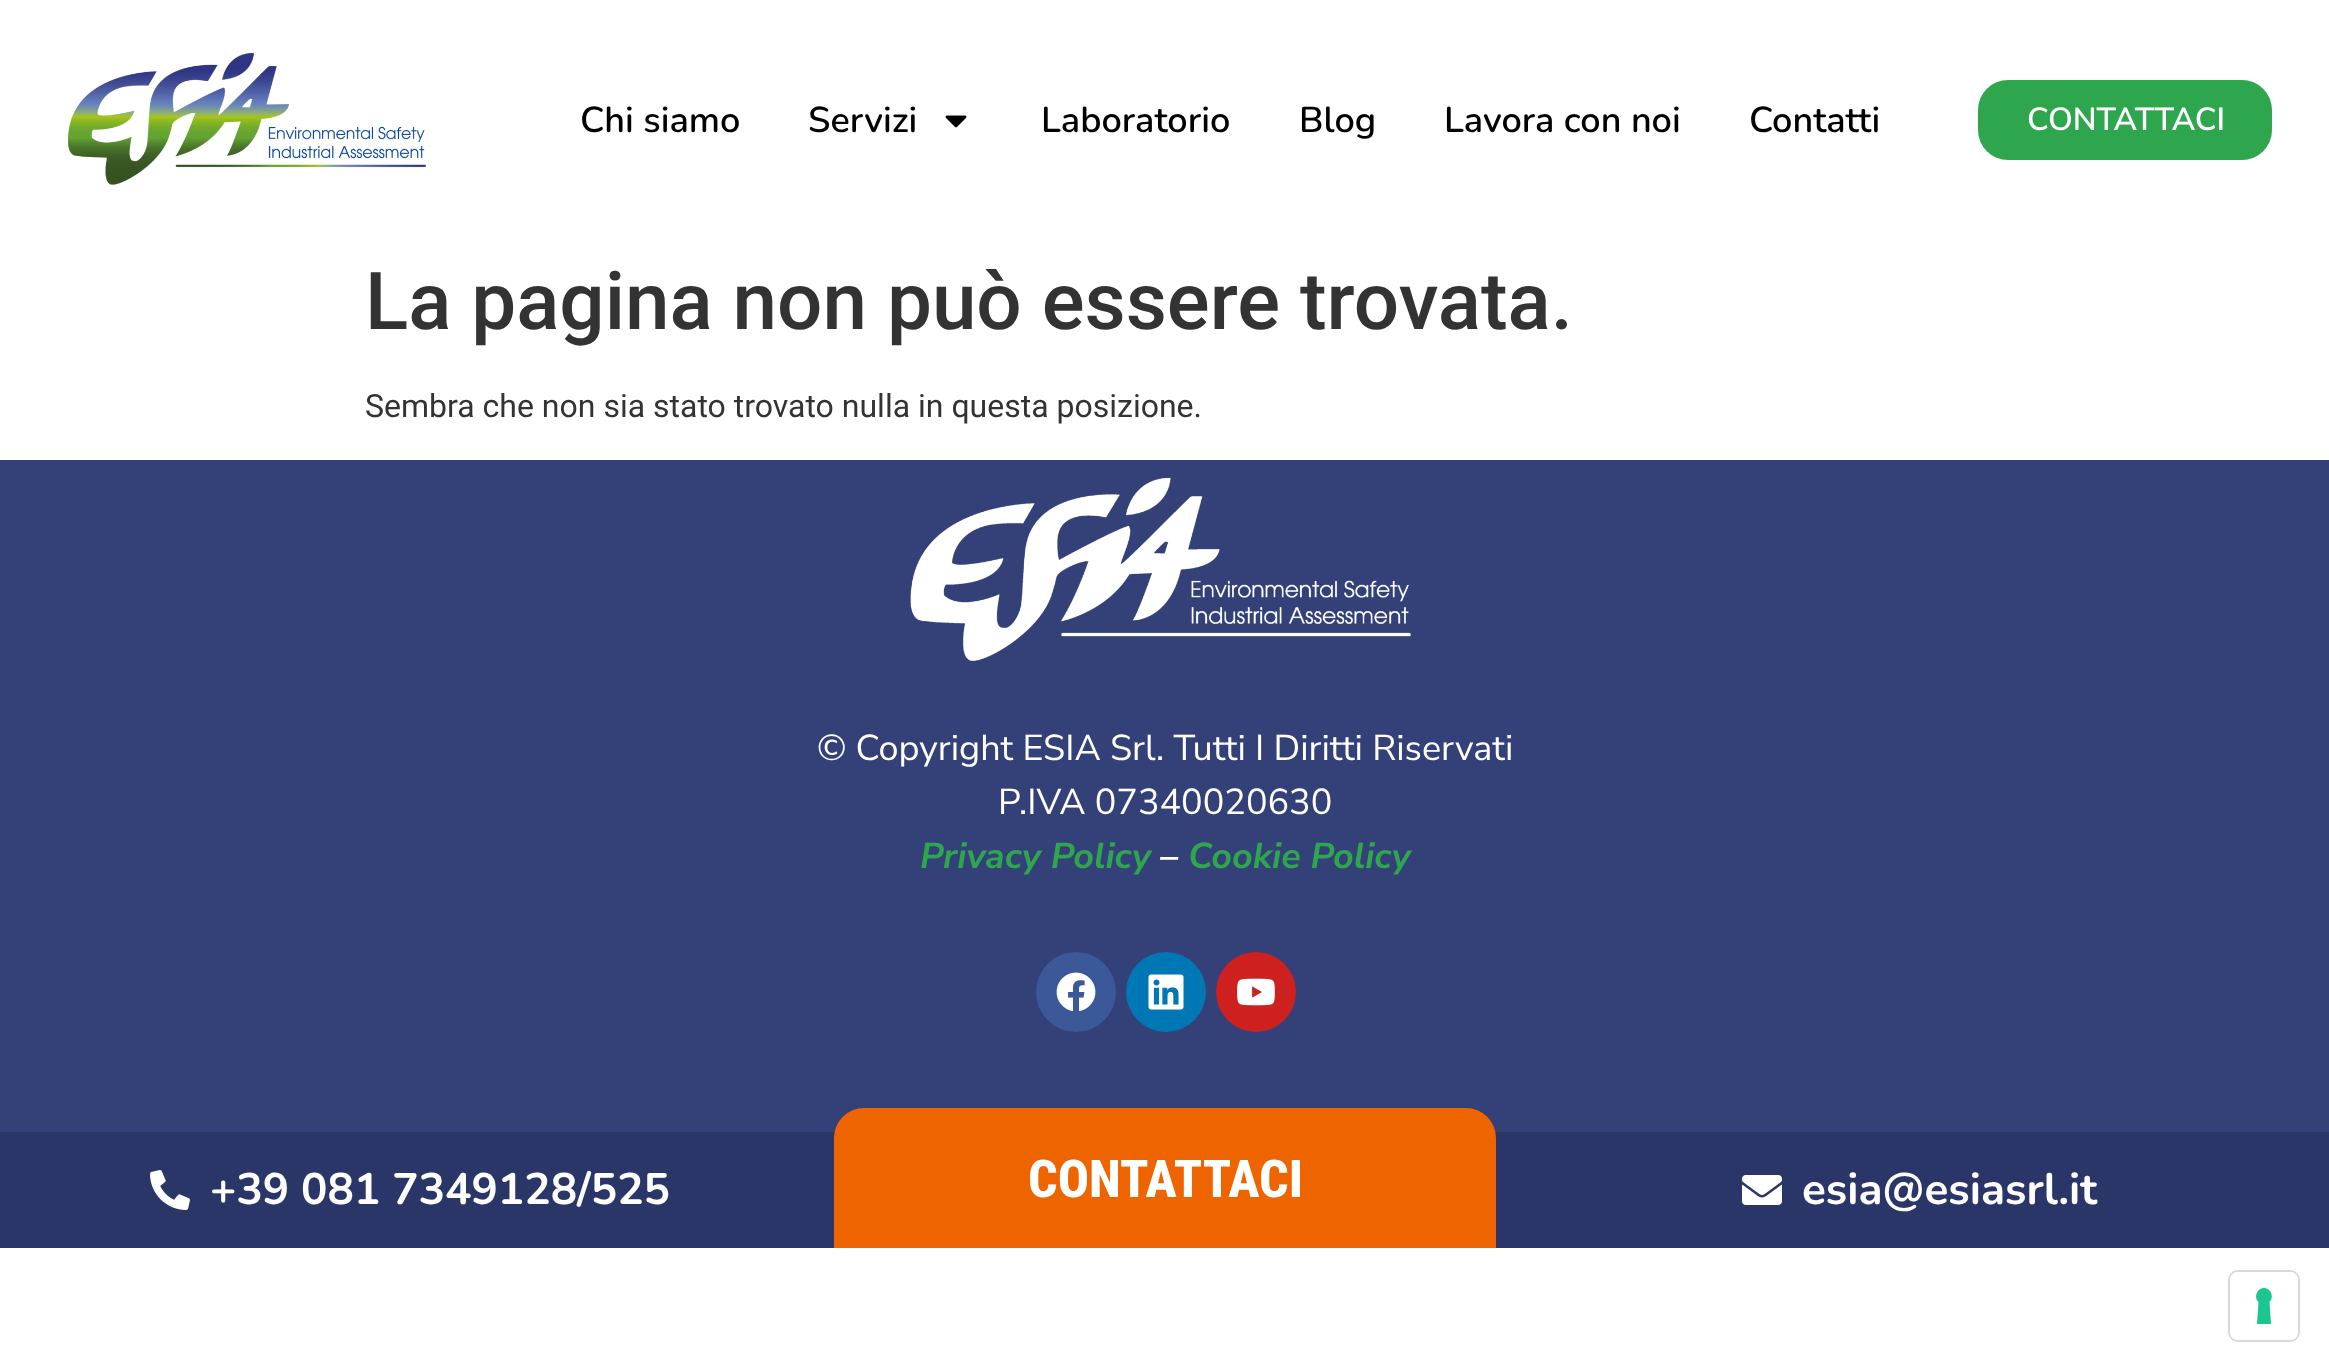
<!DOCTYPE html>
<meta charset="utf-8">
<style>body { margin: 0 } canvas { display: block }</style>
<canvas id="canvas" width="2329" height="1371"></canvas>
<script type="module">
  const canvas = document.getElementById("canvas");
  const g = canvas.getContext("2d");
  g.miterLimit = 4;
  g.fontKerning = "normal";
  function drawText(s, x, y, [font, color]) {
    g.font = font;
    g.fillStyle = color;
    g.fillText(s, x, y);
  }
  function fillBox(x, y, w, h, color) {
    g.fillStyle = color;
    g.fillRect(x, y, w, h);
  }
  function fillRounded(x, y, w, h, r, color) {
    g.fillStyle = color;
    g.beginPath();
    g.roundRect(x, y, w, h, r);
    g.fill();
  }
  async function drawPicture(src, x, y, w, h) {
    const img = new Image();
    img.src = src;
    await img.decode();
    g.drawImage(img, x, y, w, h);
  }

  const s1 = ["600 36px Nunito", "#000000"];
  const s2 = ["600 32px Nunito Sans", "#FFFFFF"];
  const s3 = ["500 80px Roboto", "#333333"];
  const s4 = ["32px Roboto", "#333333"];
  const s5 = ["36px Nunito Sans", "#FFFFFF"];
  const s6 = ["italic bold 36px Nunito Sans", "#2EA64D"];
  const s7 = ["italic bold 36px Nunito Sans", "#FFFFFF"];
  const s8 = ["bold 44px Nunito", "#FFFFFF"];
  const s9 = ["800 52px Roboto Condensed", "#FFFFFF"];

  fillBox(0, 0, 2329, 1371, "#FFFFFF");
  await drawPicture("pic1.png", 67, 52, 360, 133);
  drawText("Chi siamo", 580, 132, s1);
  drawText("Servizi", 808, 132, s1);
  await drawPicture("pic2.png", 945, 115, 22, 13);
  drawText("Laboratorio", 1041, 132, s1);
  drawText("Blog", 1299, 132, s1);
  drawText("Lavora con noi", 1444, 132, s1);
  drawText("Contatti", 1749, 132, s1);
  fillRounded(1978, 80, 294, 80, 30, "#2EA64D");
  drawText("CONTATTACI", 2027, 130, s2);
  drawText("La pagina non può essere trovata.", 365, 329, s3);
  drawText("Sembra che non sia stato trovato nulla in questa posizione.", 365, 417, s4);
  fillBox(0, 460, 2329, 672, "#344179");
  await drawPicture("pic3.png", 910, 477, 501, 184);
  drawText("© Copyright ESIA Srl. Tutti I Diritti Riservati", 817, 760, s5);
  drawText("P.IVA 07340020630", 998, 814, s5);
  drawText("Privacy Policy", 920, 868, s6);
  drawText("–", 1160, 868, s7);
  drawText("Cookie Policy", 1188, 868, s6);
  g.fillStyle = "#3B5998";
  g.beginPath();
  g.arc(1076, 992, 40, 0, Math.PI * 2);
  g.fill();
  await drawPicture("pic4.png", 1056, 972, 40, 40);
  g.fillStyle = "#0077B5";
  g.beginPath();
  g.arc(1166, 992, 40, 0, Math.PI * 2);
  g.fill();
  await drawPicture("pic5.png", 1148, 974, 36, 36);
  g.fillStyle = "#CD201F";
  g.beginPath();
  g.arc(1256, 992, 40, 0, Math.PI * 2);
  g.fill();
  await drawPicture("pic6.png", 1237, 978, 38, 28);
  fillBox(0, 1132, 2329, 116, "#2B3668");
  await drawPicture("pic7.png", 150, 1170, 40, 40);
  drawText("+39 081 7349128/525", 210, 1204, s8);
  g.fillStyle = "#EE6500";
  g.beginPath();
  g.roundRect(834, 1108, 662, 140, [30, 30, 0, 0]);
  g.fill();
  drawText("CONTATTACI", 1028, 1197, s9);
  await drawPicture("pic8.png", 1742, 1175, 40, 30);
  drawText("esia@esiasrl.it", 1802, 1204, s8);
  g.beginPath();
  g.roundRect(2229, 1271, 70, 70, 9);
  g.strokeStyle = "#D9D9D9";
  g.lineWidth = 2;
  g.stroke();
  fillRounded(2230, 1272, 68, 68, 8, "#FFFFFF");
  g.fillStyle = "#1CC691";
  g.beginPath();
  g.moveTo(2264, 1288);
  g.bezierCurveTo(2271, 1288, 2274.5, 1297.5, 2269.5, 1302);
  g.lineTo(2271, 1324);
  g.lineTo(2257, 1324);
  g.lineTo(2258.5, 1302);
  g.bezierCurveTo(2253.5, 1297.5, 2257, 1288, 2264, 1288);
  g.closePath();
  g.fill("evenodd");
</script>
